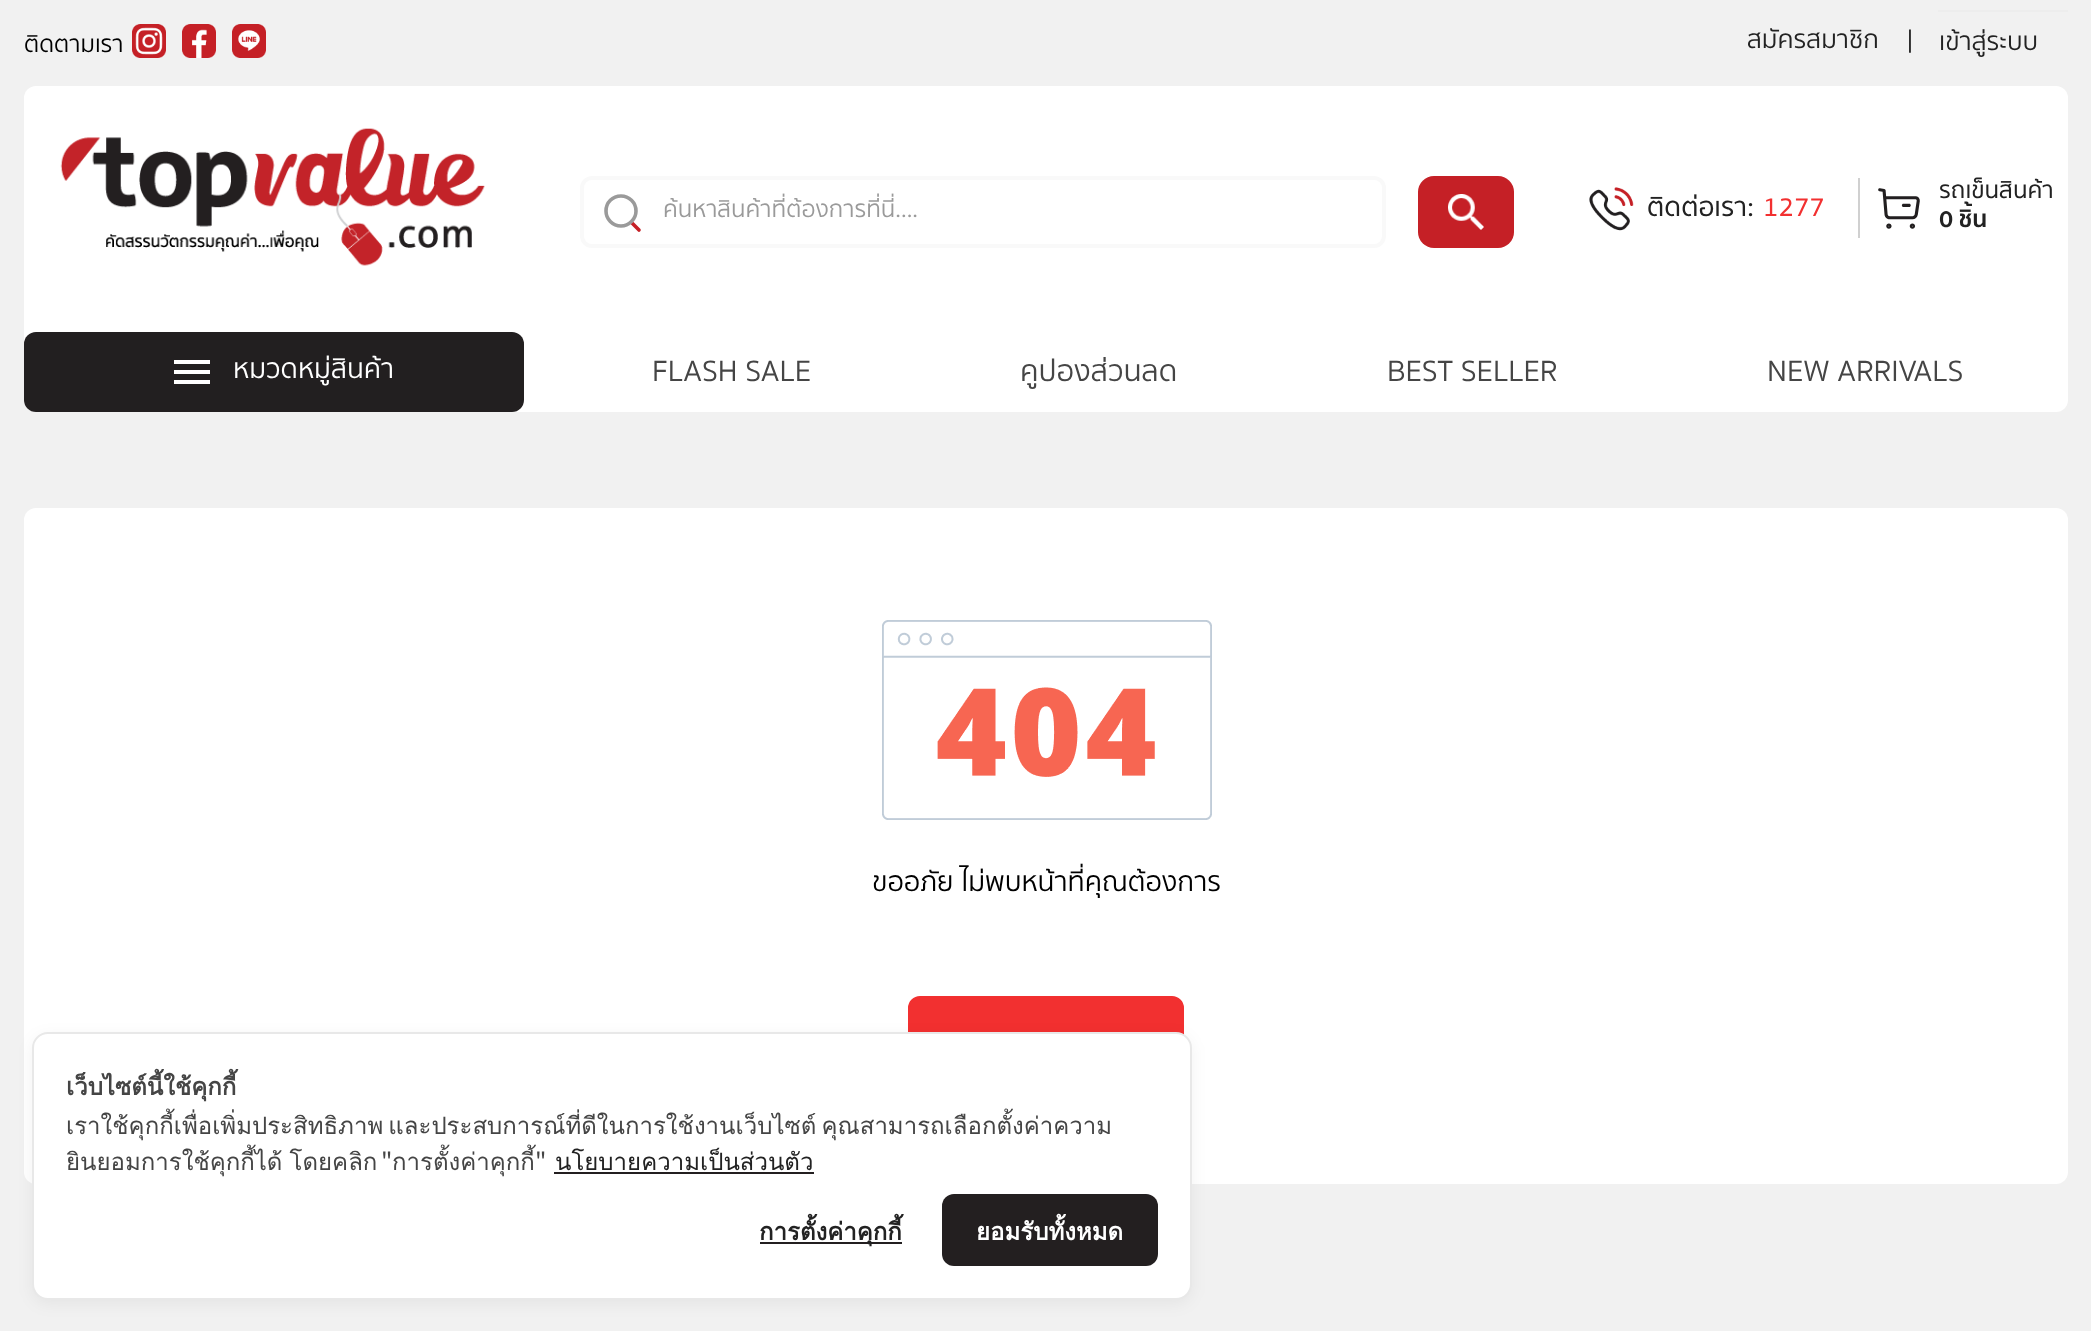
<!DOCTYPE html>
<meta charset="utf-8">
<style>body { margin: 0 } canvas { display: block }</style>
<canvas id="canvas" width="2091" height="1331"></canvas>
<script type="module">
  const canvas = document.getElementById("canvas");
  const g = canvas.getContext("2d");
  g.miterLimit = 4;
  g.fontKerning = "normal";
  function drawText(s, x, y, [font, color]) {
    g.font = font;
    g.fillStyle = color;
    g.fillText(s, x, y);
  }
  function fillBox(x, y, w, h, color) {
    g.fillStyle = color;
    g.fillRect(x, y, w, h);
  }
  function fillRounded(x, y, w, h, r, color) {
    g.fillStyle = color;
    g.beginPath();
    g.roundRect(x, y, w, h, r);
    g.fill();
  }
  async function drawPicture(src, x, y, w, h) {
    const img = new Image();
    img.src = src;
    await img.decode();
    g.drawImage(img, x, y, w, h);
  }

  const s1 = ["24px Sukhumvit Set", "#000000"];
  const s2 = ["26px Sukhumvit Set", "#222222"];
  const s3 = ["24px Sukhumvit Set", "#9A9A9A"];
  const s4 = ["500 27px Sukhumvit Set", "#222222"];
  const s5 = ["500 27px Sukhumvit Set", "#F23030"];
  const s6 = ["500 24px Sukhumvit Set", "#222222"];
  const s7 = ["bold 24px Sukhumvit Set", "#222222"];
  const s8 = ["28px Sukhumvit Set", "#FFFFFF"];
  const s9 = ["30px Sukhumvit Set", "#454545"];
  const s10 = ["28px Sukhumvit Set", "#000000"];
  const s11 = ["bold 24px Loma", "#454545"];
  const s12 = ["24px Loma", "#454545"];
  const s13 = ["24px Noto Sans JP", "#454545"];
  const s14 = ["24px Loma", "#222222"];
  const s15 = ["bold 24px Loma", "#222222"];
  const s16 = ["bold 24px Loma", "#FFFFFF"];

  fillBox(0, 0, 2091, 1331, "#F1F1F1");
  drawText("ติดตามเรา", 24, 52, s1);
  await drawPicture("pic1.png", 132, 24, 34, 34);
  await drawPicture("pic2.png", 182, 24, 34, 34);
  await drawPicture("pic3.png", 232, 24, 34, 34);
  drawText("สมัครสมาชิก", 1747, 48, s2);
  drawText("|", 1907, 48, s1);
  fillBox(1938, 10, 130, 2, "#EDEDED");
  drawText("เข้าสู่ระบบ", 1939, 50, s2);
  fillRounded(24, 86, 2044, 326, 12, "#FFFFFF");
  await drawPicture("pic4.png", 60, 128, 425, 138);
  g.beginPath();
  g.moveTo(632.5, 223.5);
  g.lineTo(639, 230);
  g.strokeStyle = "#C52026";
  g.lineWidth = 3.6;
  g.lineCap = "round";
  g.lineJoin = "round";
  g.stroke();
  g.beginPath();
  g.moveTo(636, 211);
  g.bezierCurveTo(636, 219, 629, 226, 621, 226);
  g.bezierCurveTo(612.5, 226, 606, 219, 606, 211);
  g.bezierCurveTo(606, 202.5, 612.5, 196, 621, 196);
  g.bezierCurveTo(629, 196, 636, 202.5, 636, 211);
  g.closePath();
  g.strokeStyle = "#9A9A9A";
  g.stroke();
  g.beginPath();
  g.roundRect(582, 178, 802, 68, 10);
  g.strokeStyle = "#F9F9F9";
  g.lineWidth = 4;
  g.lineJoin = "miter";
  g.stroke();
  g.save();
  g.beginPath();
  g.rect(664, 192, 686, 38);
  g.clip();
  drawText("ค้นหาสินค้าที่ต้องการที่นี่....", 663, 217, s3);
  g.restore();
  fillRounded(1418, 176, 96, 72, 16, "#C52026");
  await drawPicture("pic5.png", 1448, 194, 36, 36);
  await drawPicture("pic6.png", 1589, 187, 45, 44);
  drawText("ติดต่อเรา:", 1647, 216, s4);
  drawText("1277", 1763, 216, s5);
  fillBox(1858, 178, 2, 60, "#D0D0D0");
  await drawPicture("pic7.png", 1878, 188, 42, 41);
  drawText("รถเข็นสินค้า", 1939, 198, s6);
  drawText("0 ชิ้น", 1939, 227, s7);
  fillRounded(24, 332, 500, 80, 12, "#221F20");
  await drawPicture("pic8.png", 174, 360, 36, 24);
  drawText("หมวดหมู่สินค้า", 233, 378, s8);
  drawText("FLASH SALE", 652, 381, s9);
  drawText("คูปองส่วนลด", 1020, 381, s9);
  drawText("BEST SELLER", 1387, 381, s9);
  drawText("NEW ARRIVALS", 1767, 381, s9);
  fillRounded(24, 508, 2044, 676, 12, "#FFFFFF");
  await drawPicture("pic9.png", 882, 620, 330, 200);
  drawText("ขออภัย ไม่พบหน้าที่คุณต้องการ", 872, 891, s10);
  g.fillStyle = "#F23030";
  g.beginPath();
  g.roundRect(909, 997, 274, 74, 11);
  g.fill();
  g.strokeStyle = "#F23030";
  g.lineWidth = 2;
  g.stroke();
  g.fillStyle = "rgba(0, 0, 0, 0.05)";
  g.filter = "blur(8px)";
  g.beginPath();
  g.roundRect(32, 1036, 1160, 268, 16);
  g.fill();
  g.filter = "none";
  g.fillStyle = "#FFFFFF";
  g.beginPath();
  g.roundRect(33, 1033, 1158, 266, 15);
  g.fill();
  g.strokeStyle = "#E8E8E8";
  g.stroke();
  drawText("เว็บไซต์นี้ใช้คุกกี้", 66, 1095, s11);
  g.wordSpacing = "-3px";
  drawText("เราใช้คุกกี้เพื่อเพิ่มประสิทธิภาพ และประสบการณ์ที่ดีในการใช้งานเว็บไซต์ คุณสามารถเลือกตั้งค่าความ", 66, 1134, s12);
  g.wordSpacing = "-1px";
  drawText("ยินยอมการใช้คุกกี้ได้ โดยคลิก", 66, 1170, s12);
  g.wordSpacing = "0px";
  drawText("\"", 381, 1170, s13);
  drawText("การตั้งค่าคุกกี้", 392, 1170, s12);
  drawText("\"", 535, 1170, s13);
  drawText("นโยบายความเป็นส่วนตัว", 555, 1170, s14);
  fillBox(554, 1172, 260, 2, "#231F20");
  fillBox(760, 1242, 142, 2, "#231F20");
  drawText("การตั้งค่าคุกกี้", 759, 1240, s15);
  fillRounded(942, 1194, 216, 72, 12, "#231F20");
  drawText("ยอมรับทั้งหมด", 976, 1240, s16);
</script>
